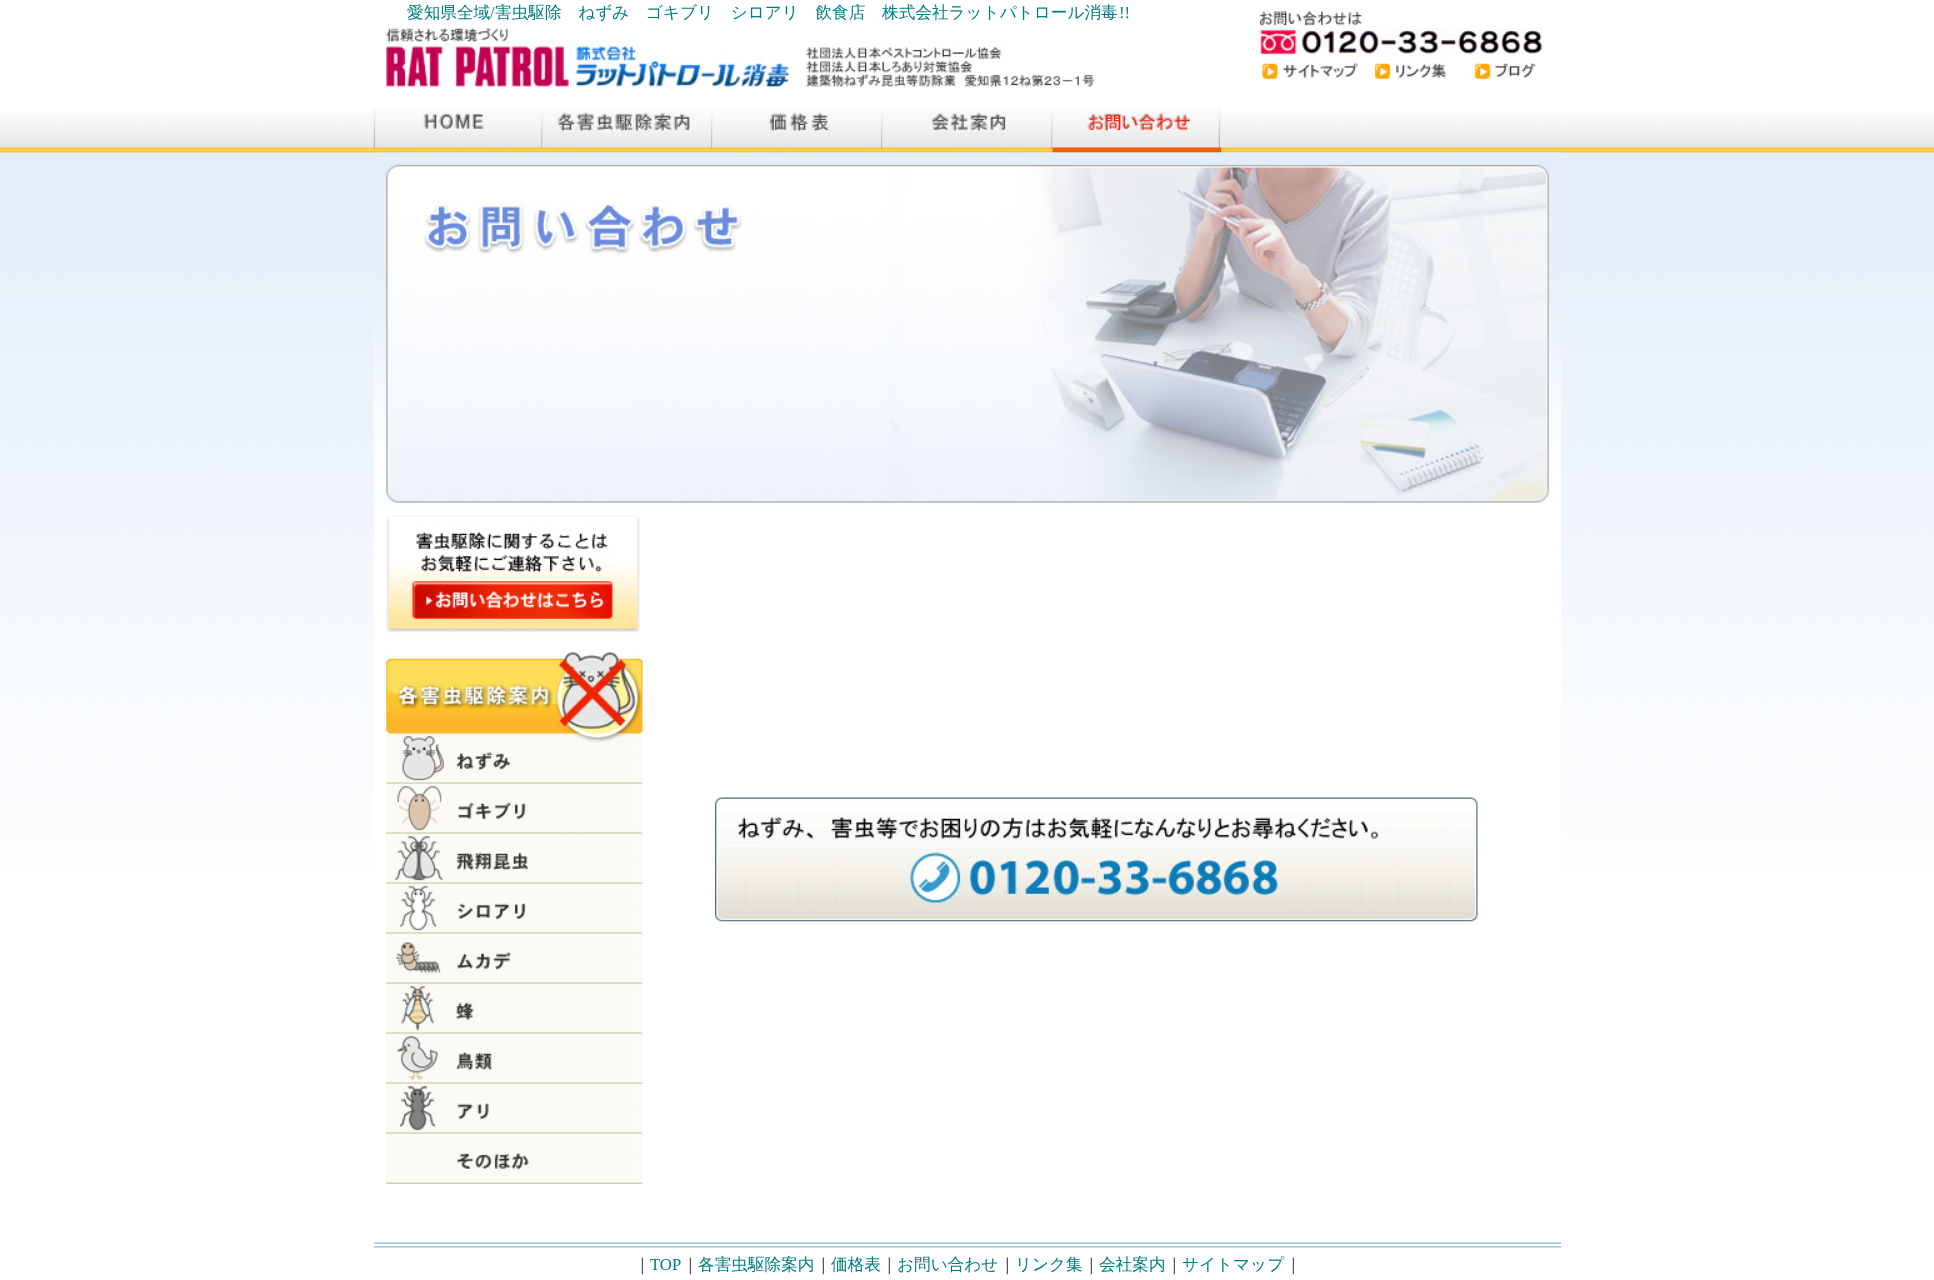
<!DOCTYPE html>
<meta charset="utf-8">
<style>body { margin: 0 } canvas { display: block }</style>
<canvas id="canvas" width="1934" height="1280"></canvas>
<script type="module">
  const canvas = document.getElementById("canvas");
  const g = canvas.getContext("2d");
  g.miterLimit = 4;
  g.fontKerning = "normal";
  function drawText(s, x, y, [font, color]) {
    g.font = font;
    g.fillStyle = color;
    g.fillText(s, x, y);
  }
  function fillBox(x, y, w, h, color) {
    g.fillStyle = color;
    g.fillRect(x, y, w, h);
  }
  async function drawPicture(src, x, y, w, h) {
    const img = new Image();
    img.src = src;
    await img.decode();
    g.drawImage(img, x, y, w, h);
  }

  const s1 = ["500 16.65px WenQuanYi Zen Hei", "#007D80"];
  const s2 = ["16.65px Liberation Serif", "#007D80"];
  const s3 = ["500 16.65px WenQuanYi Zen Hei", "#333333"];

  fillBox(0, 0, 1934, 1280, "#FFFFFF");
  await drawPicture("pic1.png", 0, 113, 1934, 758);
  drawText("愛知県全域", 407, 18, s1);
  drawText("/", 490, 18, s2);
  drawText("害虫駆除　ねずみ　ゴキブリ　シロアリ　飲食店　株式会社ラットパトロール消毒", 495, 18, s1);
  drawText("!!", 1119, 18, s2);
  await drawPicture("pic2.png", 1259, 11, 284, 44);
  await drawPicture("pic3.png", 386, 27, 403, 60);
  await drawPicture("pic4.png", 806, 46, 289, 41);
  await drawPicture("pic5.png", 1262, 62, 96, 17);
  await drawPicture("pic6.png", 1370, 63, 77, 17);
  await drawPicture("pic7.png", 1470, 63, 66, 17);
  await drawPicture("pic8.png", 373, 108, 170, 45);
  await drawPicture("pic9.png", 542, 108, 171, 45);
  await drawPicture("pic10.png", 712, 108, 171, 45);
  await drawPicture("pic11.png", 882, 108, 171, 45);
  await drawPicture("pic12.png", 1052, 108, 170, 45);
  await drawPicture("pic13.png", 373, 152, 1189, 351);
  fillBox(374, 503, 1187, 368, "#FFFFFF");
  await drawPicture("pic14.png", 386, 515, 254, 118);
  await drawPicture("pic15.png", 386, 652, 257, 82);
  await drawPicture("pic16.png", 386, 733, 257, 51);
  await drawPicture("pic17.png", 386, 783, 257, 51);
  await drawPicture("pic18.png", 386, 833, 257, 51);
  await drawPicture("pic19.png", 386, 883, 257, 51);
  await drawPicture("pic20.png", 386, 933, 257, 51);
  await drawPicture("pic21.png", 386, 983, 257, 51);
  await drawPicture("pic22.png", 386, 1033, 257, 51);
  await drawPicture("pic23.png", 386, 1083, 257, 51);
  await drawPicture("pic24.png", 386, 1133, 257, 51);
  await drawPicture("pic25.png", 715, 797, 763, 125);
  await drawPicture("pic26.png", 373, 1242, 1189, 6);
  drawText("｜", 634, 1270, s3);
  drawText("TOP", 650, 1270, s2);
  drawText("｜", 682, 1270, s3);
  drawText("各害虫駆除案内", 698, 1270, s1);
  drawText("｜", 815, 1270, s3);
  drawText("価格表", 831, 1270, s1);
  drawText("｜", 881, 1270, s3);
  drawText("お問い合わせ", 897, 1270, s1);
  drawText("｜", 999, 1270, s3);
  drawText("リンク集", 1015, 1270, s1);
  drawText("｜", 1083, 1270, s3);
  drawText("会社案内", 1099, 1270, s1);
  drawText("｜", 1166, 1270, s3);
  drawText("サイトマップ", 1182, 1270, s1);
  drawText("｜", 1285, 1270, s3);
</script>
